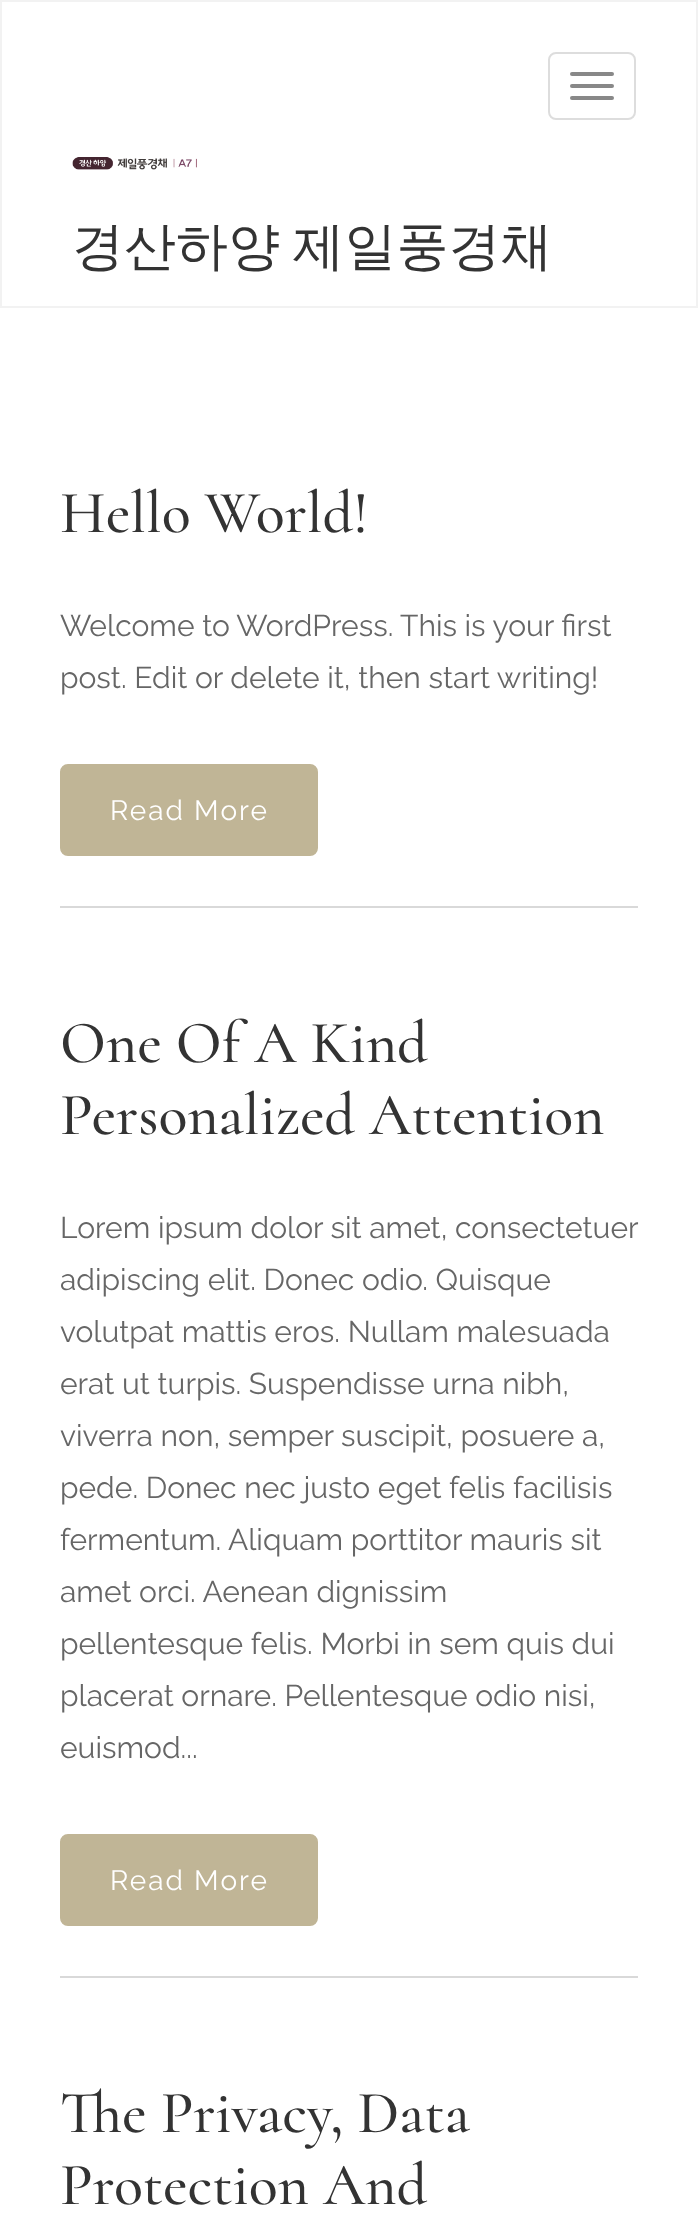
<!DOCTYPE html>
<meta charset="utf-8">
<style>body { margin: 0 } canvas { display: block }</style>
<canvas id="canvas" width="698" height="2223"></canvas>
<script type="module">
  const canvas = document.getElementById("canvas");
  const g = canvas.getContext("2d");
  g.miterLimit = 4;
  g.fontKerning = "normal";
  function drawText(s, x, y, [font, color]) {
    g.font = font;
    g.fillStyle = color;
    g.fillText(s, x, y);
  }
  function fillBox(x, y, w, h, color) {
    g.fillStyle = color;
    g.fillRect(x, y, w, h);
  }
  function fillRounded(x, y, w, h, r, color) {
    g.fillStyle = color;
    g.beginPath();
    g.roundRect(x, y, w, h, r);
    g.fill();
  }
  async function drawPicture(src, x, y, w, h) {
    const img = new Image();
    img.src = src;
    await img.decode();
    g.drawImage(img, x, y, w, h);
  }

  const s1 = ["500 52px WenQuanYi Zen Hei", "#333333"];
  const s2 = ["300 60px Cormorant", "#333333"];
  const s3 = ["100 30px Raleway", "#666666"];
  const s4 = ["100 28px Raleway", "#FFFFFF"];

  fillBox(0, 0, 698, 2223, "#FFFFFF");
  g.strokeStyle = "#F2F2F2";
  g.lineWidth = 2;
  g.strokeRect(1, 1, 696, 306);
  g.beginPath();
  g.roundRect(549, 53, 86, 66, 7);
  g.strokeStyle = "#DDDDDD";
  g.stroke();
  fillRounded(570, 72, 44, 4, 2, "#888888");
  fillRounded(570, 84, 44, 4, 2, "#888888");
  fillRounded(570, 96, 44, 4, 2, "#888888");
  await drawPicture("pic1.png", 72, 157, 125, 13);
  g.wordSpacing = "-3px";
  drawText("경산하양 제일풍경채", 72, 264, s1);
  fillBox(60, 906, 578, 2, "#D9D9D9");
  g.wordSpacing = "0px";
  drawText("Hello World!", 60, 532, s2);
  drawText("Welcome to WordPress. This is your first", 60, 636, s3);
  drawText("post. Edit or delete it, then start writing!", 60, 688, s3);
  g.fillStyle = "#C0B596";
  g.beginPath();
  g.roundRect(61, 765, 256, 90, 7);
  g.fill();
  g.strokeStyle = "#C0B596";
  g.stroke();
  g.letterSpacing = "2px";
  drawText("Read More", 110, 820, s4);
  fillBox(60, 1976, 578, 2, "#D9D9D9");
  g.letterSpacing = "0px";
  drawText("One Of A Kind", 60, 1062, s2);
  drawText("Personalized Attention", 60, 1134, s2);
  drawText("Lorem ipsum dolor sit amet, consectetuer", 60, 1238, s3);
  drawText("adipiscing elit. Donec odio. Quisque", 60, 1290, s3);
  drawText("volutpat mattis eros. Nullam malesuada", 60, 1342, s3);
  drawText("erat ut turpis. Suspendisse urna nibh,", 60, 1394, s3);
  drawText("viverra non, semper suscipit, posuere a,", 60, 1446, s3);
  drawText("pede. Donec nec justo eget felis facilisis", 60, 1498, s3);
  drawText("fermentum. Aliquam porttitor mauris sit", 60, 1550, s3);
  drawText("amet orci. Aenean dignissim", 60, 1602, s3);
  drawText("pellentesque felis. Morbi in sem quis dui", 60, 1654, s3);
  drawText("placerat ornare. Pellentesque odio nisi,", 60, 1706, s3);
  drawText("euismod...", 60, 1758, s3);
  g.fillStyle = "#C0B596";
  g.beginPath();
  g.roundRect(61, 1835, 256, 90, 7);
  g.fill();
  g.stroke();
  g.letterSpacing = "2px";
  drawText("Read More", 110, 1890, s4);
  g.letterSpacing = "0px";
  drawText("The Privacy, Data", 60, 2132, s2);
  drawText("Protection And", 60, 2204, s2);
</script>
